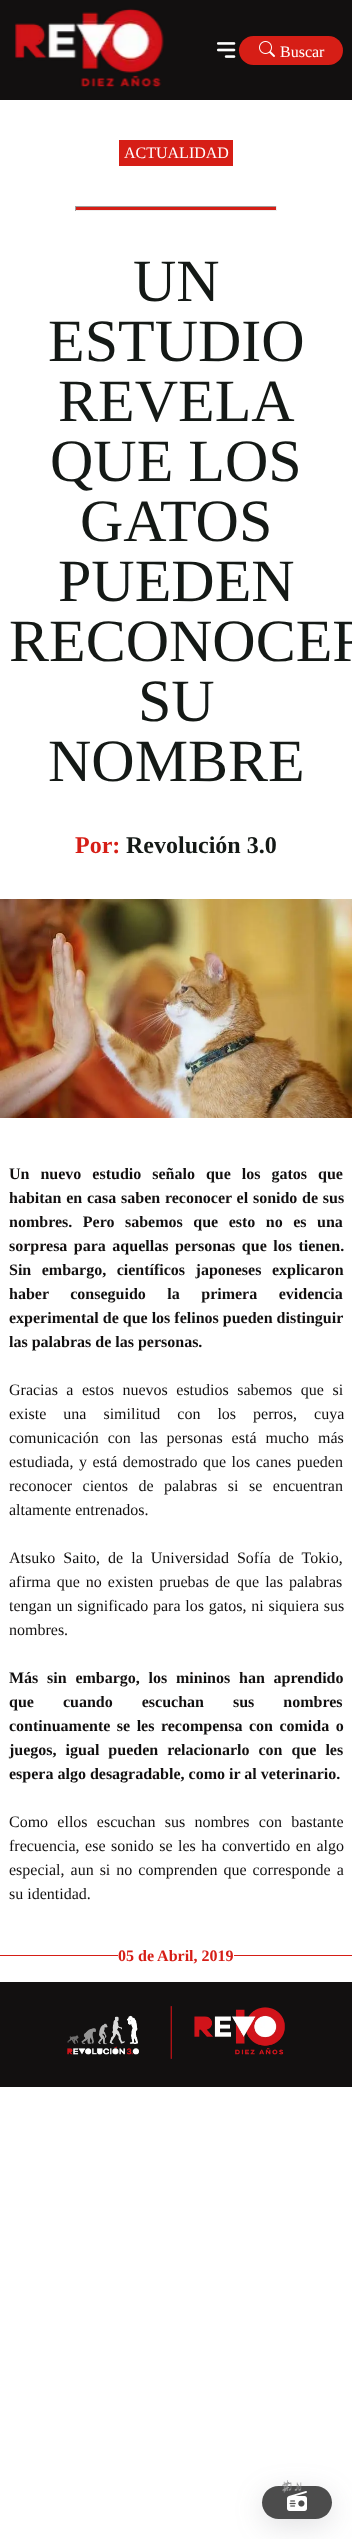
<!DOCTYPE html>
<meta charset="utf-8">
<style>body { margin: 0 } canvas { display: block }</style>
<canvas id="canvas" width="352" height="2539"></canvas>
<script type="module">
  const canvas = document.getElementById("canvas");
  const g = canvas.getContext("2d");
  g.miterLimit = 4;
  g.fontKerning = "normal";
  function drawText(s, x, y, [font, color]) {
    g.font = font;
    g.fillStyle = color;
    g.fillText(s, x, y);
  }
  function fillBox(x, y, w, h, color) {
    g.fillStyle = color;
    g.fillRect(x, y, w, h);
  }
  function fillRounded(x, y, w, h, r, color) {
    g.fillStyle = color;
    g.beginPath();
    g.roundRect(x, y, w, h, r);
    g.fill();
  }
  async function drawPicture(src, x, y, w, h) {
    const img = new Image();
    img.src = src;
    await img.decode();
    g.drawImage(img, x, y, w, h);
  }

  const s1 = ["16px Liberation Serif", "#FFFFFF"];
  const s2 = ["60px Liberation Serif", "#141916"];
  const s3 = ["bold 24px Liberation Serif", "#D61E16"];
  const s4 = ["bold 24px Liberation Serif", "#141916"];
  const s5 = ["bold 16px Liberation Serif", "#121010"];
  const s6 = ["16px Liberation Serif", "#121010"];
  const s7 = ["bold 16px Liberation Serif", "#D61E16"];
  const s8 = ["15px Liberation Serif", "#8B8B8C"];
  const s9 = ["15px Liberation Serif", "#929293"];
  const s10 = ["15px Liberation Serif", "#9A9A9A"];

  fillBox(0, 0, 352, 2539, "#FFFFFF");
  fillBox(0, 0, 352, 100, "#121010");
  await drawPicture("pic1.png", 15, 8, 149, 80);
  await drawPicture("pic2.png", 217, 42, 19, 16);
  fillRounded(239, 36, 104, 29, 14.5, "#D61E16");
  await drawPicture("pic3.png", 259, 41, 16, 16);
  drawText("Buscar", 280, 57, s1);
  fillBox(119, 140, 114, 26, "#D61E16");
  drawText("ACTUALIDAD", 124, 158, s1);
  fillBox(75, 207, 202, 3, "#D61E16");
  fillBox(75, 206, 202, 1, "#9F9F9F");
  fillBox(276, 206, 1, 5, "#EEEEEE");
  fillBox(75, 210, 202, 1, "#EEEEEE");
  fillBox(75, 206, 1, 5, "#9F9F9F");
  drawText("UN", 133, 301, s2);
  drawText("ESTUDIO", 48, 361, s2);
  drawText("REVELA", 58, 421, s2);
  drawText("QUE LOS", 50, 481, s2);
  drawText("GATOS", 80, 541, s2);
  drawText("PUEDEN", 58, 601, s2);
  drawText("RECONOCER", 9, 661, s2);
  drawText("SU", 138, 721, s2);
  drawText("NOMBRE", 48, 781, s2);
  drawText("Por:", 75, 853, s3);
  drawText("Revolución 3.0", 126, 853, s4);
  await drawPicture("pic4.png", 0, 899, 352, 219);
  g.wordSpacing = "7px";
  drawText("Un nuevo estudio señalo que los gatos que", 9, 1179, s5);
  g.wordSpacing = "0.75px";
  drawText("habitan en casa saben reconocer el sonido de sus", 9, 1203, s5);
  g.wordSpacing = "6.5px";
  drawText("nombres. Pero sabemos que esto no es una", 9, 1227, s5);
  g.wordSpacing = "2.5px";
  drawText("sorpresa para aquellas personas que los tienen.", 9, 1251, s5);
  g.wordSpacing = "6.5px";
  drawText("Sin embargo, científicos japoneses explicaron", 9, 1275, s5);
  g.wordSpacing = "17.5px";
  drawText("haber conseguido la primera evidencia", 9, 1299, s5);
  g.wordSpacing = "0px";
  drawText("experimental de que los felinos pueden distinguir", 9, 1323, s5);
  drawText("las palabras de las personas.", 9, 1347, s5);
  g.wordSpacing = "4.5px";
  drawText("Gracias a estos nuevos estudios sabemos que si", 9, 1395, s6);
  g.wordSpacing = "13px";
  drawText("existe una similitud con los perros, cuya", 9, 1419, s6);
  g.wordSpacing = "5px";
  drawText("comunicación con las personas está mucho más", 9, 1443, s6);
  g.wordSpacing = "1.5px";
  drawText("estudiada, y está demostrado que los canes pueden", 9, 1467, s6);
  g.wordSpacing = "6.5px";
  drawText("reconocer cientos de palabras si se encuentran", 9, 1491, s6);
  g.wordSpacing = "0px";
  drawText("altamente entrenados.", 9, 1515, s6);
  g.wordSpacing = "4px";
  drawText("Atsuko Saito, de la Universidad Sofía de Tokio,", 9, 1563, s6);
  g.wordSpacing = "2px";
  drawText("afirma que no existen pruebas de que las palabras", 9, 1587, s6);
  g.wordSpacing = "0.75px";
  drawText("tengan un significado para los gatos, ni siquiera sus", 9, 1611, s6);
  g.wordSpacing = "0px";
  drawText("nombres.", 9, 1635, s6);
  g.wordSpacing = "4.75px";
  drawText("Más sin embargo, los mininos han aprendido", 9, 1683, s5);
  g.wordSpacing = "25px";
  drawText("que cuando escuchan sus nombres", 9, 1707, s5);
  g.wordSpacing = "2.5px";
  drawText("continuamente se les recompensa con comida o", 9, 1731, s5);
  g.wordSpacing = "5px";
  drawText("juegos, igual pueden relacionarlo con que les", 9, 1755, s5);
  g.wordSpacing = "0px";
  drawText("espera algo desagradable, como ir al veterinario.", 9, 1779, s5);
  g.wordSpacing = "5.25px";
  drawText("Como ellos escuchan sus nombres con bastante", 9, 1827, s6);
  g.wordSpacing = "1.5px";
  drawText("frecuencia, ese sonido se les ha convertido en algo", 9, 1851, s6);
  g.wordSpacing = "2px";
  drawText("especial, aun si no comprenden que corresponde a", 9, 1875, s6);
  g.wordSpacing = "0px";
  drawText("su identidad.", 9, 1899, s6);
  fillBox(0, 1955, 118, 1, "#D61E16");
  drawText("05 de Abril, 2019", 118, 1961, s7);
  fillBox(234, 1955, 118, 1, "#D61E16");
  fillBox(0, 1982, 352, 105, "#121010");
  await drawPicture("pic5.png", 67, 2006, 218, 53);
  g.save();
  g.beginPath();
  g.moveTo(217, 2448);
  g.lineTo(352, 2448);
  g.lineTo(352, 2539);
  g.lineTo(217, 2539);
  g.closePath();
  g.moveTo(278.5, 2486);
  g.lineTo(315.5, 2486);
  g.bezierCurveTo(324.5, 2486, 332, 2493.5, 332, 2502.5);
  g.bezierCurveTo(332, 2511.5, 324.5, 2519, 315.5, 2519);
  g.lineTo(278.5, 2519);
  g.bezierCurveTo(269.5, 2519, 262, 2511.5, 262, 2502.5);
  g.bezierCurveTo(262, 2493.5, 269.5, 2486, 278.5, 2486);
  g.closePath();
  g.clip("evenodd");
  g.fillStyle = "rgba(99, 99, 110, 0.2)";
  g.filter = "blur(14.5px)";
  g.beginPath();
  g.roundRect(262, 2493, 70, 33, 16.5);
  g.fill();
  g.filter = "none";
  g.restore();
  fillRounded(262, 2486, 70, 33, 16.5, "rgba(0, 0, 0, 0.7)");
  await drawPicture("pic6.png", 287, 2491, 20, 20);
  drawText("♫ ♩", 282, 2491, s8);
  drawText("♩", 282, 2491, s9);
  drawText("♯ ♪", 282, 2491, s10);
</script>
